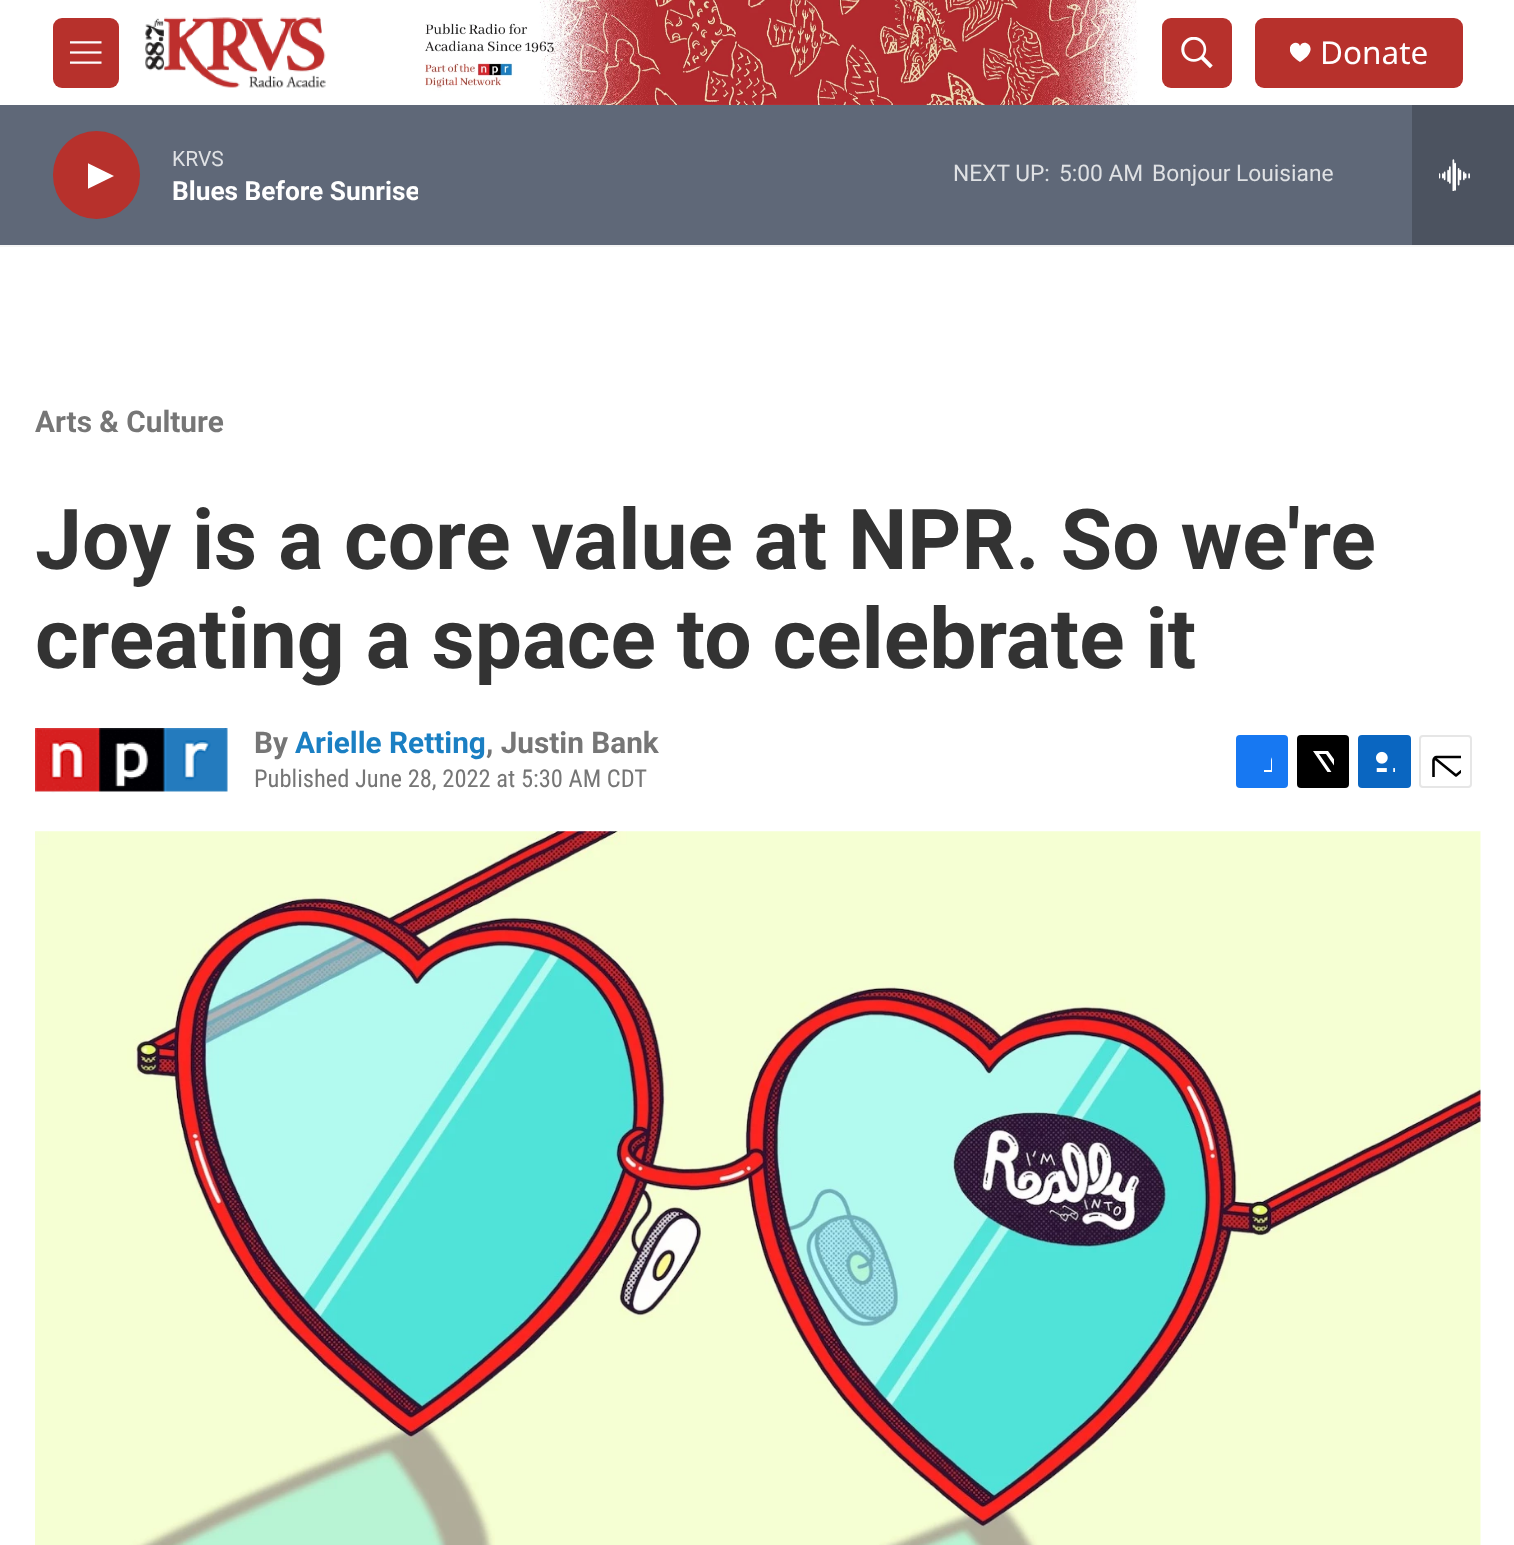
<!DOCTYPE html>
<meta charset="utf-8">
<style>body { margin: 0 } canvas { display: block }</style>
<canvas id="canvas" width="1514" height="1545"></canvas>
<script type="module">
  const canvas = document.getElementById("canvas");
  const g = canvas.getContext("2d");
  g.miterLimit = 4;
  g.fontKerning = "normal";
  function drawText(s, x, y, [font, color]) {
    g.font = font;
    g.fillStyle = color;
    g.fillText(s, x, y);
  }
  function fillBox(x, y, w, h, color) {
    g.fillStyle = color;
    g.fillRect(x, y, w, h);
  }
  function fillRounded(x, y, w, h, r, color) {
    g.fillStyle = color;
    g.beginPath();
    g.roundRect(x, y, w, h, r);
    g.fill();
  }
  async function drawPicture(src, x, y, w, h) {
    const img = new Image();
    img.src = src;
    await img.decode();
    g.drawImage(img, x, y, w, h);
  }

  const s1 = ["31.5px Noto Sans", "#FFFFFF"];
  const s2 = ["21px Roboto", "#DFE1E4"];
  const s3 = ["bold 26.25px 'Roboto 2'", "#FFFFFF"];
  const s4 = ["22.75px Roboto", "#DFE1E4"];
  const s5 = ["bold 29.75px Roboto", "#767676"];
  const s6 = ["bold 84px Roboto", "#333333"];
  const s7 = ["bold 29.75px Roboto", "#1A7FC3"];
  const s8 = ["24.5px Roboto Condensed", "#767676"];

  fillBox(0, 0, 1514, 1545, "#FFFFFF");
  fillBox(0, 245, 1514, 2, "#F5F5F5");
  await drawPicture("pic1.png", 424, 0, 714, 105);
  fillRounded(53, 18, 66, 70, 9, "#B7312C");
  await drawPicture("pic2.png", 70, 41, 32, 23);
  await drawPicture("pic3.png", 145, 17, 181, 71);
  fillRounded(1162, 18, 70, 70, 9, "#B7312C");
  await drawPicture("pic4.png", 1181, 37, 32, 31);
  fillRounded(1255, 18, 208, 70, 9, "#B7312C");
  g.save();
  g.beginPath();
  g.rect(1290, 42, 21, 21);
  g.clip();
  g.fillStyle = "#FFFFFF";
  g.beginPath();
  g.moveTo(1300, 46);
  g.bezierCurveTo(1297, 37, 1278.5, 48.5, 1300, 62);
  g.bezierCurveTo(1322, 48.5, 1303.5, 37, 1300, 46);
  g.closePath();
  g.fill();
  g.restore();
  drawText("Donate", 1320, 64, s1);
  fillBox(0, 105, 1412, 140, "#5F6878");
  fillRounded(53, 131, 87, 88, 43.5, "#B7312C");
  g.save();
  g.beginPath();
  g.rect(88, 159, 26, 34);
  g.clip();
  g.fillStyle = "#FFFFFF";
  g.beginPath();
  g.moveTo(87.5, 163);
  g.lineTo(114, 176);
  g.lineTo(87.5, 189);
  g.closePath();
  g.fill();
  g.restore();
  drawText("KRVS", 172, 166, s2);
  g.save();
  g.beginPath();
  g.rect(172, 175, 246, 32);
  g.clip();
  drawText("Blues Before Sunrise", 172, 200, s3);
  g.restore();
  drawText("NEXT UP:", 953, 181, s4);
  drawText("5:00 AM", 1059, 181, s4);
  drawText("Bonjour Louisiane", 1152, 181, s4);
  fillBox(1412, 105, 102, 140, "#4C5360");
  await drawPicture("pic5.png", 1439, 159, 31, 32);
  drawText("Arts & Culture", 35, 432, s5);
  drawText("Joy is a core value at NPR. So we're", 35, 569, s6);
  drawText("creating a space to celebrate it", 35, 668, s6);
  await drawPicture("pic6.png", 35, 728, 193, 65);
  drawText("By", 254, 753, s5);
  drawText("Arielle Retting", 295, 753, s7);
  drawText(", Justin Bank", 486, 753, s5);
  drawText("Published June 28, 2022 at 5:30 AM CDT", 254, 787, s8);
  fillRounded(1236, 735, 52, 53, 4, "#1778F2");
  g.save();
  g.beginPath();
  g.rect(1251, 751, 21, 21);
  g.clip();
  g.fillStyle = "#FFFFFF";
  g.beginPath();
  g.moveTo(1280, 788);
  g.lineTo(1271, 788);
  g.lineTo(1271, 779);
  g.lineTo(1264, 779);
  g.lineTo(1264, 770);
  g.lineTo(1271, 770);
  g.lineTo(1271, 760);
  g.bezierCurveTo(1273, 751.5, 1281, 751, 1288, 752);
  g.lineTo(1288, 760);
  g.bezierCurveTo(1278.5, 760, 1280, 761.5, 1280, 770);
  g.lineTo(1288, 770);
  g.lineTo(1288, 774.5);
  g.lineTo(1287, 779);
  g.lineTo(1280, 779);
  g.closePath();
  g.fill();
  g.restore();
  fillRounded(1297, 735, 52, 53, 4, "#000000");
  g.save();
  g.beginPath();
  g.rect(1313, 751, 21, 21);
  g.clip();
  g.fillStyle = "#FFFFFF";
  g.beginPath();
  g.moveTo(1344, 773);
  g.lineTo(1349, 780.5);
  g.bezierCurveTo(1349, 782.5, 1349.5, 784.5, 1348.5, 786);
  g.lineTo(1326, 754);
  g.lineTo(1319, 754);
  g.lineTo(1342.5, 788);
  g.lineTo(1338.5, 788);
  g.lineTo(1335, 783);
  g.lineTo(1331, 788);
  g.lineTo(1326, 788);
  g.lineTo(1333, 780);
  g.lineTo(1313, 751);
  g.lineTo(1328, 751);
  g.lineTo(1342, 770);
  g.lineTo(1349, 761.5);
  g.lineTo(1349, 767);
  g.closePath();
  g.fill();
  g.restore();
  fillRounded(1358, 735, 53, 53, 4, "#0A66C1");
  await drawPicture("pic7.png", 1376, 751, 19, 21);
  g.beginPath();
  g.roundRect(1420, 736, 51, 51, 3);
  g.strokeStyle = "#E6E6E6";
  g.lineWidth = 2;
  g.stroke();
  g.save();
  g.beginPath();
  g.rect(1430, 746, 31, 31);
  g.clip();
  g.beginPath();
  g.moveTo(1478.5, 784);
  g.bezierCurveTo(1478.5, 785.5, 1477, 787, 1475.5, 787);
  g.lineTo(1436.5, 787);
  g.bezierCurveTo(1435, 787, 1433.5, 785.5, 1433.5, 784);
  g.lineTo(1433.5, 760.5);
  g.bezierCurveTo(1433.5, 758.5, 1435, 757, 1436.5, 757);
  g.lineTo(1475.5, 757);
  g.bezierCurveTo(1477, 757, 1478.5, 758.5, 1478.5, 760.5);
  g.closePath();
  g.moveTo(1477.5, 758);
  g.lineTo(1456, 775.5);
  g.lineTo(1434.5, 758);
  g.strokeStyle = "#000000";
  g.lineWidth = 2.6;
  g.lineCap = "round";
  g.lineJoin = "round";
  g.stroke();
  g.restore();
  await drawPicture("pic8.png", 35, 831, 1446, 714);
</script>
